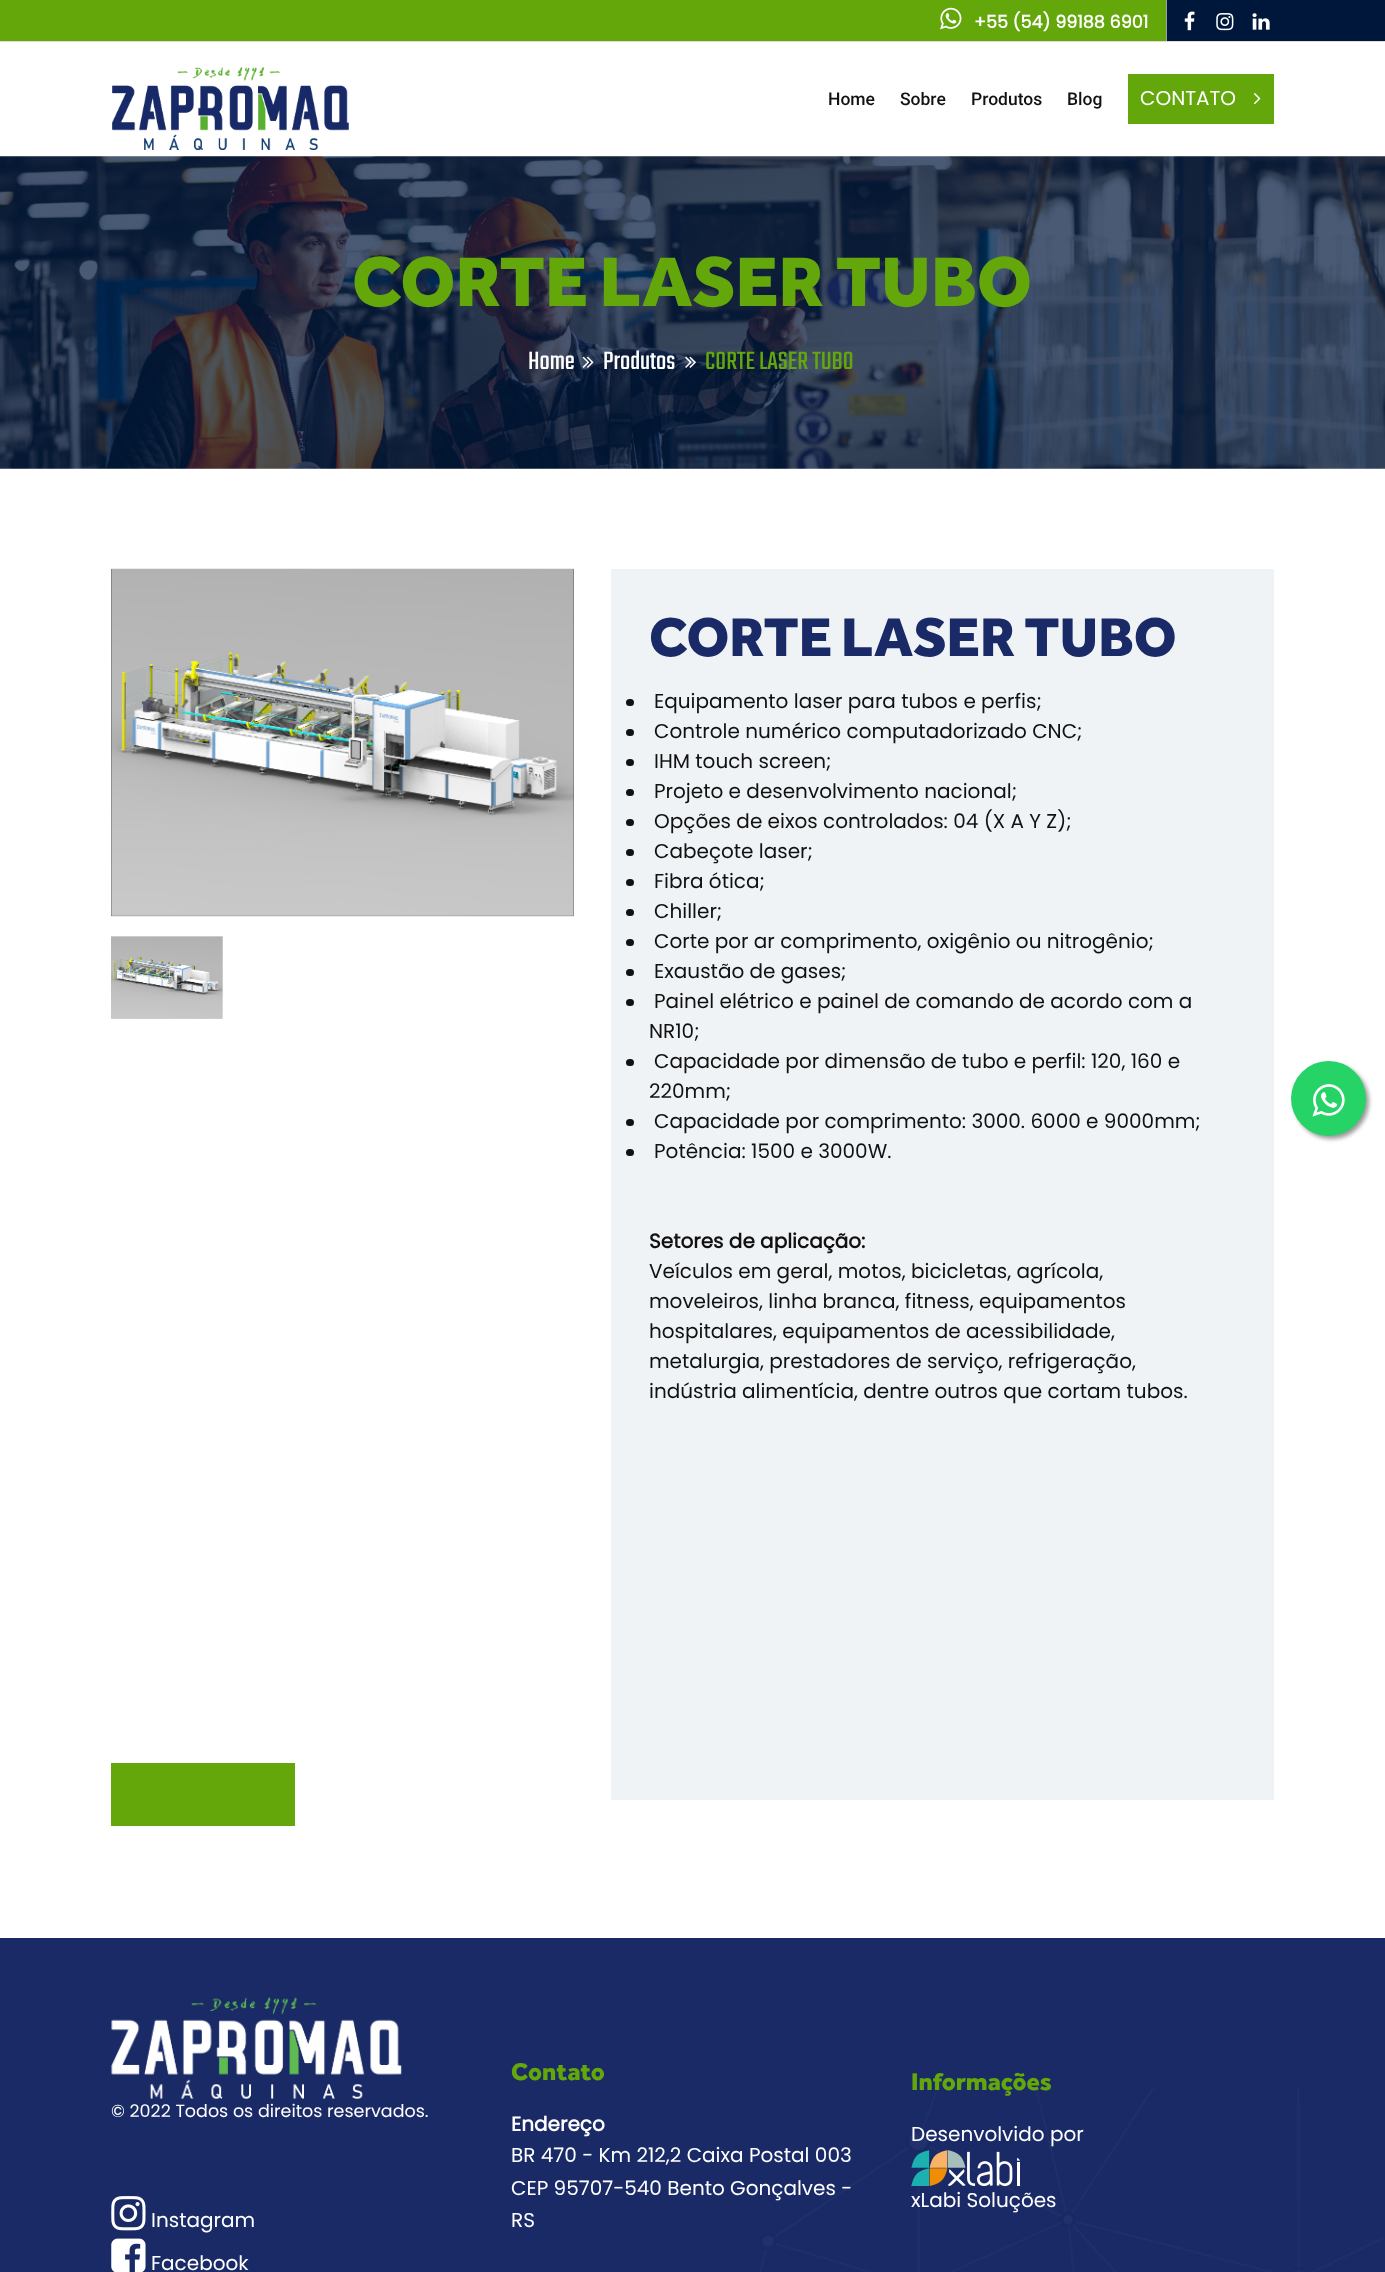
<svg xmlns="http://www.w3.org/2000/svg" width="1385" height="2272">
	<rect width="100%" height="100%" fill="#FFFFFF" />
	<rect x="1167" y="0" width="218" height="41" fill="#00173C" />
	<rect x="1166" y="0" width="1" height="41" fill="#99A2B1" />
	<rect x="0" y="0" width="1166" height="41" fill="#64A70B" />
	<image x="940" y="7" width="22" height="23" href="assets/img1.png" />
	<text x="974" y="28" font-family="Poppins" font-size="17.5" font-weight="700" fill="#FFFFFF">+55 (54) 99188 6901</text>
	<image x="1184" y="11" width="11" height="20" href="assets/img2.png" />
	<image x="1216" y="13" width="18" height="18" href="assets/img3.png" />
	<image x="1252" y="13" width="18" height="17" href="assets/img4.png" />
	<rect x="0" y="41" width="1385" height="1" fill="#DDDDDD" />
	<image x="112" y="67" width="237" height="83" href="assets/img5.png" />
	<g font-family="Roboto" font-size="17.5" font-weight="500" fill="#111111">
		<text x="828" y="105">Home</text>
		<text x="900" y="105">Sobre</text>
		<text x="971" y="105">Produtos</text>
		<text x="1067" y="105">Blog</text>
	</g>
	<rect x="1128" y="74" width="146" height="50" fill="#64A70B" />
	<text x="1140" y="105" font-family="Poppins" font-size="20" fill="#FFFFFF">CONTATO</text>
	<image x="1253" y="93" width="8" height="12" href="assets/img6.png" />
	<image x="0" y="156" width="1385" height="313" href="assets/img7.png" />
	<text x="352" y="306" font-family="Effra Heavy" font-size="72.5" font-weight="900" fill="#64A70B">CORTE LASER TUBO</text>
	<text x="528" y="369" font-family="Teko" font-size="27.5" fill="#FFFFFF">Home</text>
	<image x="582" y="356" width="12" height="12" href="assets/img8.png" />
	<text x="603" y="369" font-family="Teko" font-size="27.5" fill="#FFFFFF">Produtos</text>
	<image x="685" y="356" width="11" height="12" href="assets/img9.png" />
	<text x="705" y="369" font-family="Teko" font-size="27.5" fill="#64A70B">CORTE LASER TUBO</text>
	<rect x="111" y="569" width="463" height="347" fill="#000000" />
	<image x="111" y="568" width="463" height="349" href="assets/img10.png" />
	<image x="111" y="936" width="112" height="83" href="assets/img11.png" />
	<rect x="111" y="1763" width="184" height="63" fill="#64A70B" />
	<rect x="611" y="569" width="663" height="1231" fill="#EFF3F6" />
	<text x="649" y="656" font-family="Effra Heavy" font-size="56.25" font-weight="900" fill="#192A67">CORTE LASER TUBO</text>
	<rect x="626" y="699" width="8" height="7" rx="3.5" fill="#111111" />
	<text x="654" y="708" font-family="Poppins" font-size="20" fill="#111111">Equipamento laser para tubos e perfis;</text>
	<rect x="626" y="729" width="8" height="7" rx="3.5" fill="#111111" />
	<text x="654" y="738" font-family="Poppins" font-size="20" fill="#111111">Controle numérico computadorizado CNC;</text>
	<rect x="626" y="759" width="8" height="7" rx="3.5" fill="#111111" />
	<text x="654" y="768" font-family="Poppins" font-size="20" fill="#111111">IHM touch screen;</text>
	<rect x="626" y="789" width="8" height="7" rx="3.5" fill="#111111" />
	<text x="654" y="798" font-family="Poppins" font-size="20" fill="#111111">Projeto e desenvolvimento nacional;</text>
	<rect x="626" y="819" width="8" height="7" rx="3.5" fill="#111111" />
	<text x="654" y="828" font-family="Poppins" font-size="20" fill="#111111">Opções de eixos controlados: 04 (X A Y Z);</text>
	<rect x="626" y="849" width="8" height="7" rx="3.5" fill="#111111" />
	<text x="654" y="858" font-family="Poppins" font-size="20" fill="#111111">Cabeçote laser;</text>
	<rect x="626" y="879" width="8" height="7" rx="3.5" fill="#111111" />
	<text x="654" y="888" font-family="Poppins" font-size="20" fill="#111111">Fibra ótica;</text>
	<rect x="626" y="909" width="8" height="7" rx="3.5" fill="#111111" />
	<text x="654" y="918" font-family="Poppins" font-size="20" fill="#111111">Chiller;</text>
	<rect x="626" y="939" width="8" height="7" rx="3.5" fill="#111111" />
	<text x="654" y="948" font-family="Poppins" font-size="20" fill="#111111">Corte por ar comprimento, oxigênio ou nitrogênio;</text>
	<rect x="626" y="969" width="8" height="7" rx="3.5" fill="#111111" />
	<text x="654" y="978" font-family="Poppins" font-size="20" fill="#111111">Exaustão de gases;</text>
	<rect x="626" y="999" width="8" height="7" rx="3.5" fill="#111111" />
	<g font-family="Poppins" font-size="20" fill="#111111">
		<text x="654" y="1008">Painel elétrico e painel de comando de acordo com a</text>
		<text x="649" y="1038">NR10;</text>
	</g>
	<rect x="626" y="1059" width="8" height="7" rx="3.5" fill="#111111" />
	<g font-family="Poppins" font-size="20" fill="#111111">
		<text x="654" y="1068">Capacidade por dimensão de tubo e perfil: 120, 160 e</text>
		<text x="649" y="1098">220mm;</text>
	</g>
	<rect x="626" y="1119" width="8" height="7" rx="3.5" fill="#111111" />
	<text x="654" y="1128" font-family="Poppins" font-size="20" fill="#111111">Capacidade por comprimento: 3000. 6000 e 9000mm;</text>
	<rect x="626" y="1149" width="8" height="7" rx="3.5" fill="#111111" />
	<text x="654" y="1158" font-family="Poppins" font-size="20" fill="#111111">Potência: 1500 e 3000W.</text>
	<text x="649" y="1248" font-family="Poppins" font-size="20" font-weight="700" fill="#111111">Setores de aplicação:</text>
	<g font-family="Poppins" font-size="20" fill="#111111">
		<text x="649" y="1278">Veículos em geral, motos, bicicletas, agrícola,</text>
		<text x="649" y="1308">moveleiros, linha branca, fitness, equipamentos</text>
		<text x="649" y="1338">hospitalares, equipamentos de acessibilidade,</text>
		<text x="649" y="1368">metalurgia, prestadores de serviço, refrigeração,</text>
		<text x="649" y="1398">indústria alimentícia, dentre outros que cortam tubos.</text>
	</g>
	<rect x="1294" y="1064" width="75" height="75" rx="37.5" fill="#999999" filter="blur(2px)" />
	<circle cx="1328.5" cy="1098.5" r="37.5" fill="#25D366" />
	<image x="1312" y="1084" width="33" height="33" href="assets/img12.png" />
	<rect x="0" y="1938" width="1385" height="334" fill="#192A67" />
	<image x="760" y="2088" width="624" height="184" href="assets/img13.png" />
	<image x="111" y="1997" width="291" height="102" href="assets/img14.png" />
	<text x="111" y="2117" font-family="Poppins" font-size="17.5" fill="#FFFFFF">© 2022 Todos os direitos reservados.</text>
	<image x="111" y="2196" width="35" height="35" href="assets/img15.png" />
	<text x="151" y="2227" font-family="Poppins" font-size="20" fill="#FFFFFF">Instagram</text>
	<image x="111" y="2238" width="35" height="34" href="assets/img16.png" />
	<text x="151" y="2270" font-family="Poppins" font-size="20" fill="#FFFFFF">Facebook</text>
	<text x="511" y="2080" font-family="Effra Heavy" font-size="25" font-weight="900" fill="#64A70B">Contato</text>
	<text x="511" y="2131" font-family="Poppins" font-size="20" font-weight="700" fill="#FFFFFF">Endereço</text>
	<g font-family="Poppins" font-size="20" fill="#FFFFFF">
		<text x="511" y="2162">BR 470 - Km 212,2 Caixa Postal 003</text>
		<text x="511" y="2195">CEP 95707-540 Bento Gonçalves -</text>
		<text x="511" y="2227">RS</text>
	</g>
	<text x="911" y="2090" font-family="Effra Heavy" font-size="25" font-weight="900" fill="#64A70B">Informações</text>
	<text x="911" y="2141" font-family="Poppins" font-size="20" fill="#FFFFFF">Desenvolvido por</text>
	<image x="911" y="2150" width="109" height="36" href="assets/img17.png" />
	<text x="911" y="2207" font-family="Poppins" font-size="20" fill="#FFFFFF">xLabi Soluções</text>
</svg>
